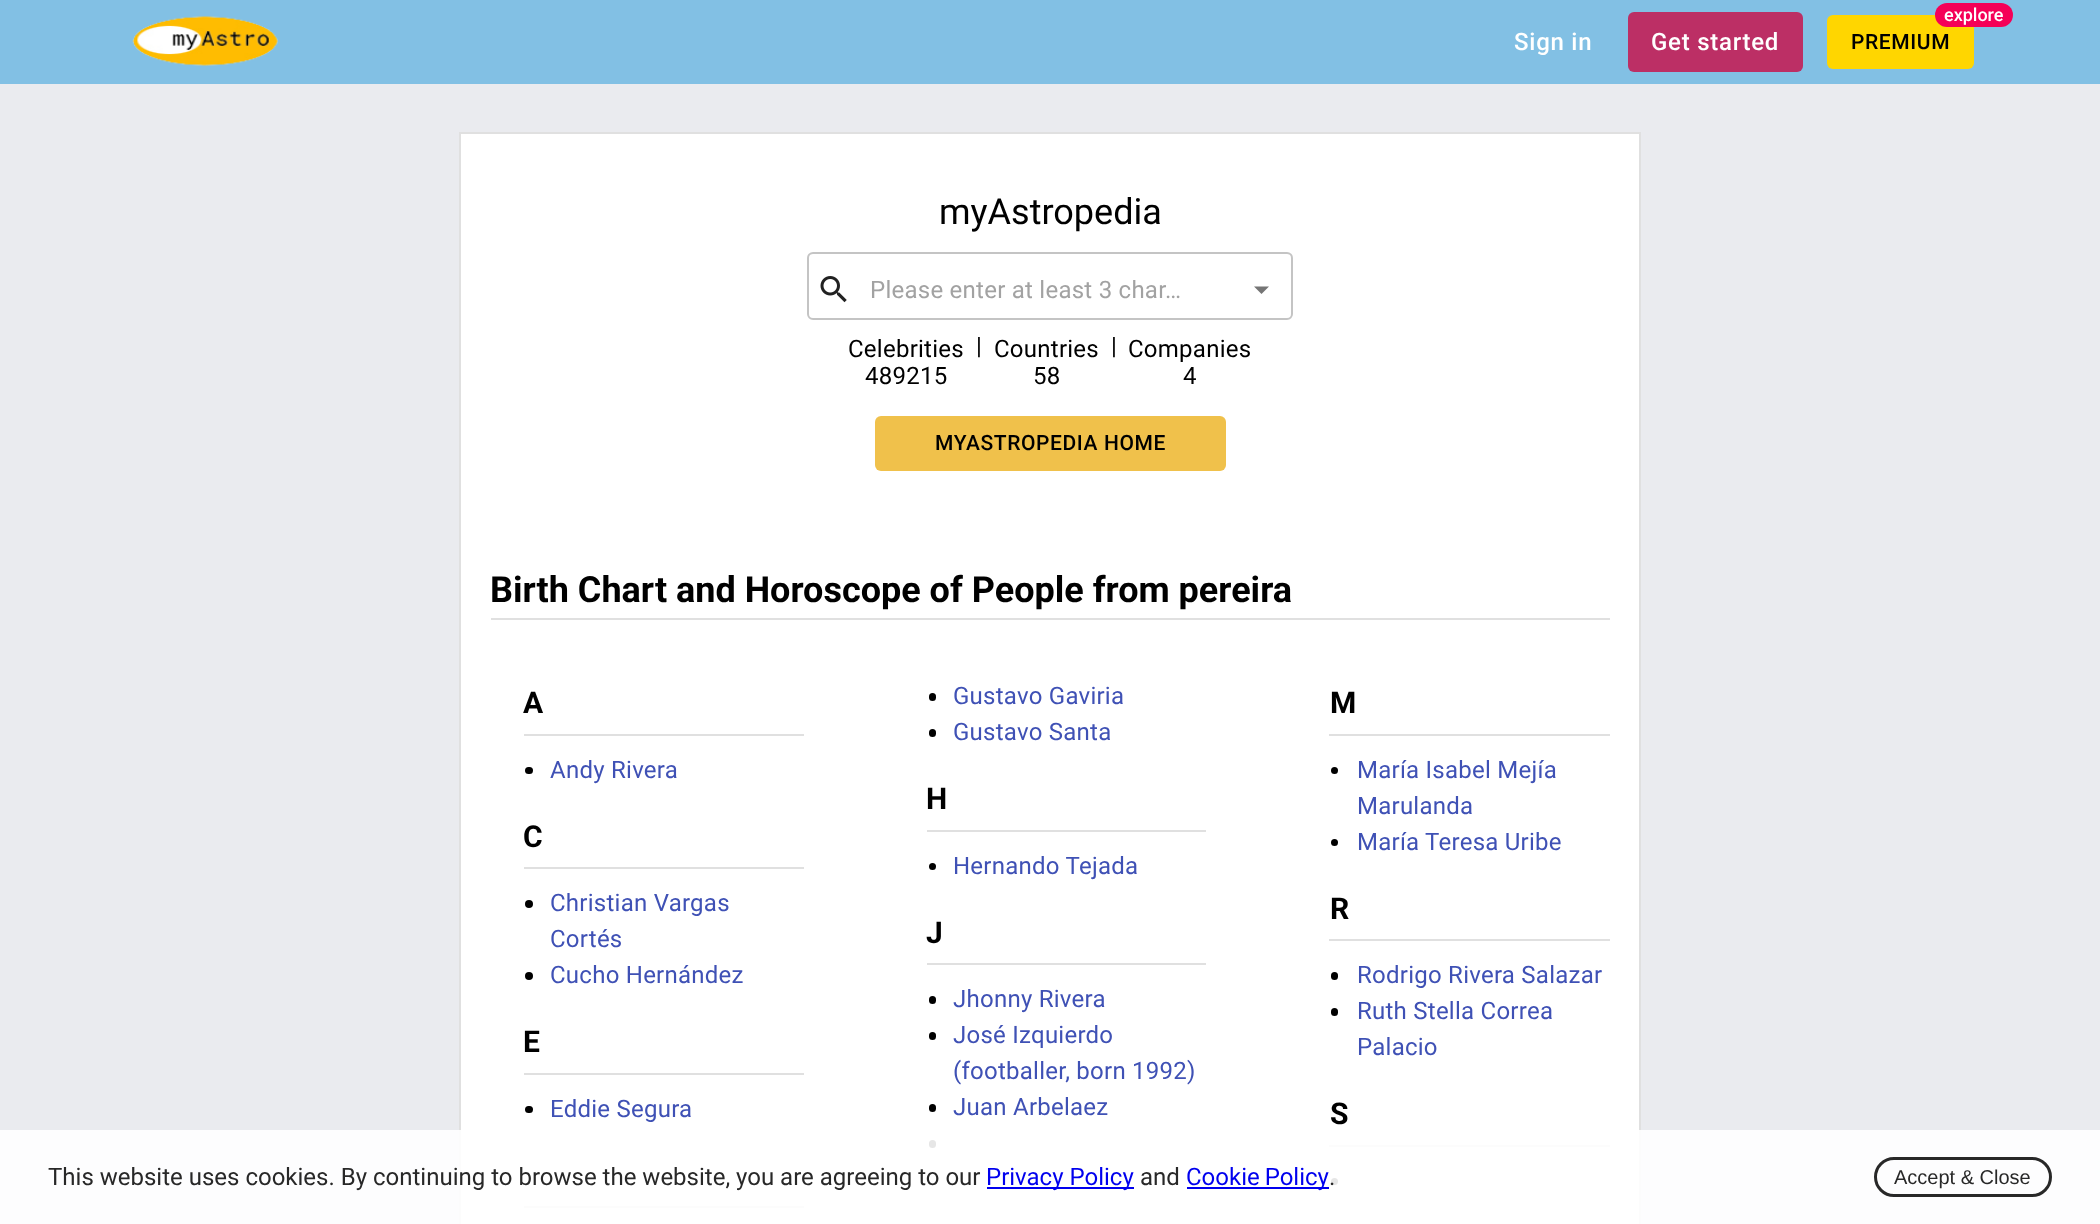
<svg xmlns="http://www.w3.org/2000/svg" width="2100" height="1224">
	<rect width="100%" height="100%" fill="#EAEBEF" />
	<rect x="0" y="0" width="2100" height="84" fill="#82C0E4" />
	<image x="132" y="16" width="146" height="50" href="assets/img1.png" />
	<text x="1514" y="50" font-family="Roboto" font-size="24" font-weight="500" letter-spacing="0.75" fill="#FFFFFF">Sign in</text>
	<rect x="1628" y="12" width="175" height="60" rx="6" fill="#BC2F65" />
	<text x="1651" y="50" font-family="Roboto" font-size="24" font-weight="500" letter-spacing="0.75" fill="#FFFFFF">Get started</text>
	<rect x="1827" y="15" width="147" height="54" rx="6" fill="#FFD600" />
	<rect x="1935" y="3" width="78" height="24" rx="12" fill="#F50057" />
	<text x="1944" y="21" font-family="Roboto" font-size="18" font-weight="500" fill="#FFFFFF">explore</text>
	<text x="1851" y="49" font-family="Roboto" font-size="21" font-weight="500" letter-spacing="0.6" fill="#000000">PREMIUM</text>
	<rect x="460" y="133" width="1180" height="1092" fill="#FFFFFF" stroke="#E0E0E0" stroke-width="2" />
	<text x="939" y="224" font-family="Roboto" font-size="36" fill="#000000">myAstropedia</text>
	<image x="820" y="276" width="27" height="27" href="assets/img2.png" />
	<path d="M1254 286.5L1261.5 294L1269 286.5Z" fill="#757575" />
	<rect x="808" y="253" width="484" height="66" rx="5" fill="none" stroke="#C4C4C4" stroke-width="2" />
	<text x="870" y="298" font-family="Roboto" font-size="24" letter-spacing="0.25" fill="#A2A2A2">Please enter at least 3 char…</text>
	<g font-family="Roboto" font-size="24" letter-spacing="0.25" fill="#000000">
		<text x="848" y="357">Celebrities</text>
		<text x="865" y="384">489215</text>
	</g>
	<text x="976" y="354" font-family="Roboto" font-size="24" fill="#000000">|</text>
	<g font-family="Roboto" font-size="24" letter-spacing="0.25" fill="#000000">
		<text x="994" y="357">Countries</text>
		<text x="1033" y="384">58</text>
	</g>
	<text x="1111" y="354" font-family="Roboto" font-size="24" fill="#000000">|</text>
	<g font-family="Roboto" font-size="24" letter-spacing="0.25" fill="#000000">
		<text x="1128" y="357">Companies</text>
		<text x="1183" y="384">4</text>
	</g>
	<rect x="875" y="416" width="351" height="55" rx="6" fill="#F0C14B" />
	<text x="935" y="450" font-family="Roboto" font-size="21" font-weight="500" letter-spacing="0.6" fill="#000000">MYASTROPEDIA HOME</text>
	<text x="490" y="602" font-family="Roboto" font-size="36" font-weight="700" fill="#000000">Birth Chart and Horoscope of People from pereira</text>
	<rect x="491" y="618" width="1119" height="2" fill="#E0E0E0" />
	<text x="523" y="713" font-family="Roboto" font-size="30" font-weight="700" fill="#000000">A</text>
	<rect x="929" y="693" width="7" height="8" rx="3.5" fill="#000000" />
	<text x="953" y="704" font-family="Roboto" font-size="24" letter-spacing="0.25" fill="#3F51B5">Gustavo Gaviria</text>
	<text x="1330" y="713" font-family="Roboto" font-size="30" font-weight="700" fill="#000000">M</text>
	<rect x="524" y="734" width="280" height="2" fill="#E0E0E0" />
	<rect x="929" y="729" width="7" height="8" rx="3.5" fill="#000000" />
	<text x="953" y="740" font-family="Roboto" font-size="24" letter-spacing="0.25" fill="#3F51B5">Gustavo Santa</text>
	<rect x="1329" y="734" width="281" height="2" fill="#E0E0E0" />
	<rect x="525" y="767" width="8" height="7" rx="3.5" fill="#000000" />
	<text x="550" y="778" font-family="Roboto" font-size="24" letter-spacing="0.25" fill="#3F51B5">Andy Rivera</text>
	<text x="926" y="809" font-family="Roboto" font-size="30" font-weight="700" fill="#000000">H</text>
	<circle cx="1334.5" cy="770.5" r="3.5" fill="#000000" />
	<g font-family="Roboto" font-size="24" letter-spacing="0.25" fill="#3F51B5">
		<text x="1357" y="778">María Isabel Mejía</text>
		<text x="1357" y="814">Marulanda</text>
	</g>
	<text x="523" y="847" font-family="Roboto" font-size="30" font-weight="700" fill="#000000">C</text>
	<rect x="927" y="830" width="279" height="2" fill="#E0E0E0" />
	<circle cx="1334.5" cy="842.5" r="3.5" fill="#000000" />
	<text x="1357" y="850" font-family="Roboto" font-size="24" letter-spacing="0.25" fill="#3F51B5">María Teresa Uribe</text>
	<rect x="524" y="867" width="280" height="2" fill="#E0E0E0" />
	<circle cx="932.5" cy="866.5" r="3.5" fill="#000000" />
	<text x="953" y="874" font-family="Roboto" font-size="24" letter-spacing="0.25" fill="#3F51B5">Hernando Tejada</text>
	<circle cx="529" cy="904" r="4" fill="#000000" />
	<g font-family="Roboto" font-size="24" letter-spacing="0.25" fill="#3F51B5">
		<text x="550" y="911">Christian Vargas</text>
		<text x="550" y="947">Cortés</text>
	</g>
	<g font-family="Roboto" font-size="30" font-weight="700" fill="#000000">
		<text x="1330" y="919">R</text>
		<text x="926" y="943">J</text>
	</g>
	<rect x="1329" y="939" width="281" height="2" fill="#E0E0E0" />
	<rect x="927" y="963" width="279" height="2" fill="#E0E0E0" />
	<circle cx="529" cy="976" r="4" fill="#000000" />
	<text x="550" y="983" font-family="Roboto" font-size="24" letter-spacing="0.25" fill="#3F51B5">Cucho Hernández</text>
	<rect x="1331" y="972" width="7" height="8" rx="3.5" fill="#000000" />
	<text x="1357" y="983" font-family="Roboto" font-size="24" letter-spacing="0.25" fill="#3F51B5">Rodrigo Rivera Salazar</text>
	<rect x="929" y="996" width="7" height="8" rx="3.5" fill="#000000" />
	<text x="953" y="1007" font-family="Roboto" font-size="24" letter-spacing="0.25" fill="#3F51B5">Jhonny Rivera</text>
	<rect x="1331" y="1008" width="7" height="8" rx="3.5" fill="#000000" />
	<g font-family="Roboto" font-size="24" letter-spacing="0.25" fill="#3F51B5">
		<text x="1357" y="1019">Ruth Stella Correa</text>
		<text x="1357" y="1055">Palacio</text>
	</g>
	<text x="523" y="1052" font-family="Roboto" font-size="30" font-weight="700" fill="#000000">E</text>
	<rect x="929" y="1032" width="7" height="8" rx="3.5" fill="#000000" />
	<g font-family="Roboto" font-size="24" letter-spacing="0.25" fill="#3F51B5">
		<text x="953" y="1043">José Izquierdo</text>
		<text x="953" y="1079">(footballer, born 1992)</text>
	</g>
	<rect x="524" y="1073" width="280" height="2" fill="#E0E0E0" />
	<rect x="525" y="1106" width="8" height="7" rx="3.5" fill="#000000" />
	<text x="550" y="1117" font-family="Roboto" font-size="24" letter-spacing="0.25" fill="#3F51B5">Eddie Segura</text>
	<rect x="929" y="1104" width="7" height="8" rx="3.5" fill="#000000" />
	<text x="953" y="1115" font-family="Roboto" font-size="24" letter-spacing="0.25" fill="#3F51B5">Juan Arbelaez</text>
	<text x="1330" y="1124" font-family="Roboto" font-size="30" font-weight="700" fill="#000000">S</text>
	<rect x="929" y="1140" width="7" height="8" rx="3.5" fill="#000000" />
	<rect x="1329" y="1145" width="281" height="2" fill="#E0E0E0" />
	<circle cx="1334.5" cy="1181.5" r="3.5" fill="#000000" />
	<rect x="524" y="1206" width="280" height="2" fill="#E0E0E0" />
	<rect x="0" y="1130" width="2100" height="94" fill="#FFFFFF" fill-opacity="0.9" />
	<text x="48" y="1185" font-family="Roboto" font-size="24" fill="#282828">This website uses cookies. By continuing to browse the website, you are agreeing to our</text>
	<rect x="987" y="1187" width="147" height="2" fill="#0000EE" />
	<text x="986" y="1185" font-family="Roboto" font-size="24" fill="#0000EE">Privacy Policy</text>
	<text x="1140" y="1185" font-family="Roboto" font-size="24" fill="#282828">and</text>
	<rect x="1187" y="1187" width="142" height="2" fill="#0000EE" />
	<text x="1186" y="1185" word-spacing="-1" font-family="Roboto" font-size="24" fill="#0000EE">Cookie Policy</text>
	<text x="1329" y="1185" font-family="Roboto" font-size="24" fill="#282828">.</text>
	<rect x="1875.5" y="1158.5" width="175" height="37" rx="18.5" fill="none" stroke="#282828" stroke-width="3" />
	<text x="1894" y="1184" font-family="Liberation Sans" font-size="20" fill="#282828">Accept &amp; Close</text>
</svg>
